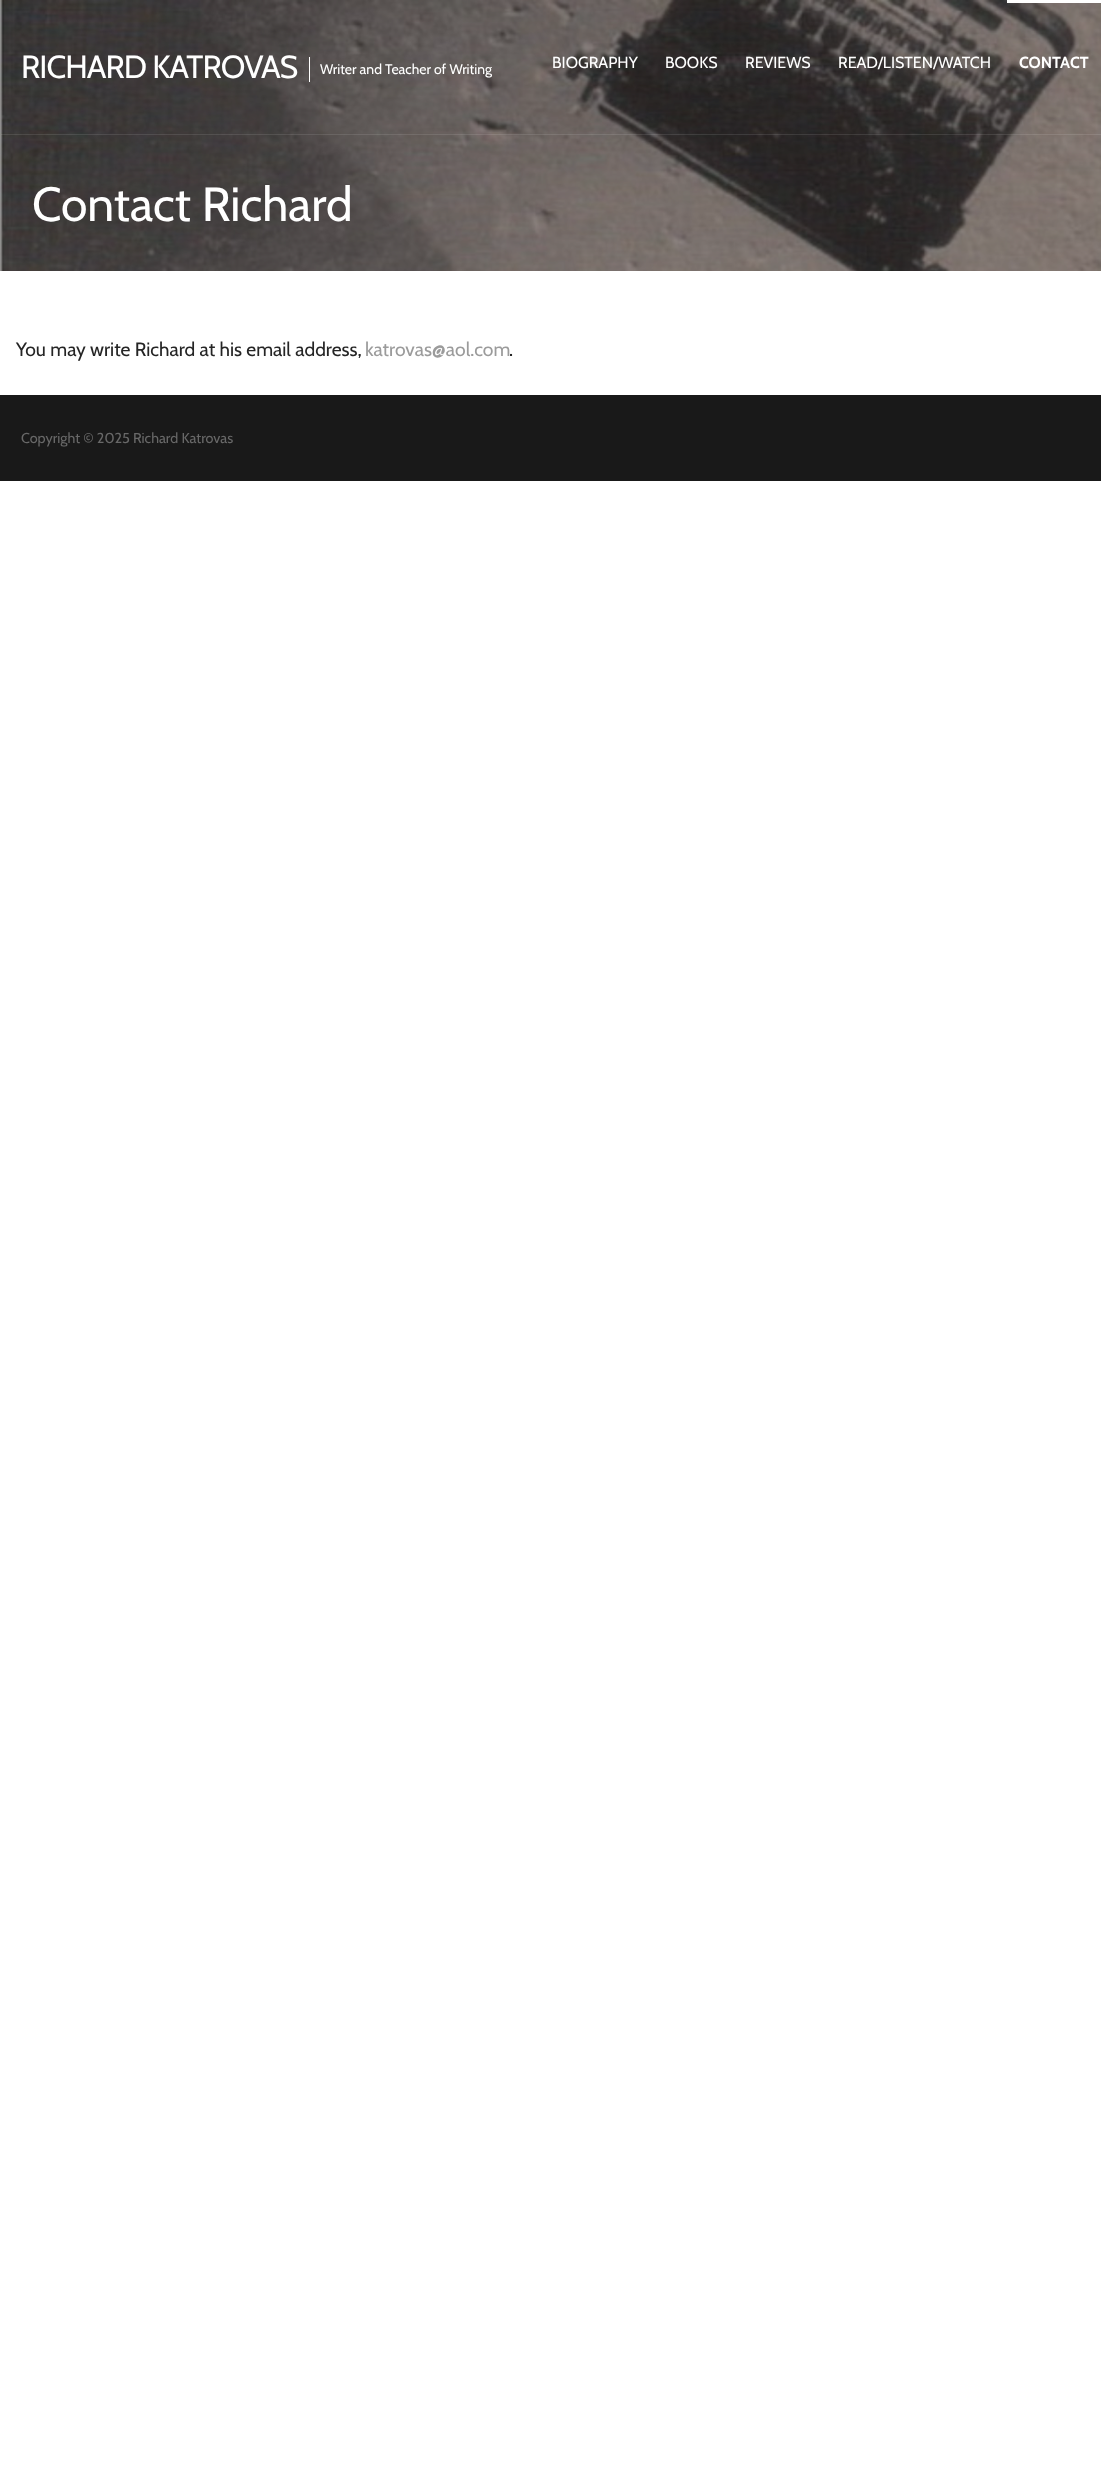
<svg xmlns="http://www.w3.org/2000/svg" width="1101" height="2465">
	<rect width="100%" height="100%" fill="#FFFFFF" />
	<image x="0" y="0" width="1101" height="271" href="assets/img1.png" />
	<rect x="1" y="134" width="1100" height="1" fill="#FFFFFF" fill-opacity="0.1" />
	<text x="21" y="78" font-family="Cabin" font-size="32" letter-spacing="-1" fill="#FFFFFF">RICHARD KATROVAS</text>
	<rect x="309" y="57" width="1" height="25" fill="#FFFFFF" />
	<text x="320" y="74" font-family="Cabin" font-size="14" fill="#FFFFFF">Writer and Teacher of Writing</text>
	<g font-family="Cabin" font-size="16" fill="#FFFFFF">
		<text x="552" y="68">BIOGRAPHY</text>
		<text x="665" y="68">BOOKS</text>
		<text x="745" y="68">REVIEWS</text>
		<text x="838" y="68">READ/LISTEN/WATCH</text>
	</g>
	<rect x="1007" y="0" width="94" height="3" fill="#FFFFFF" />
	<text x="1019" y="68" font-family="Cabin" font-size="16" font-weight="700" fill="#FFFFFF">CONTACT</text>
	<text x="32" y="221" font-family="Cabin" font-size="48" fill="#FFFFFF">Contact Richard</text>
	<text x="16" y="356" font-family="Cabin" font-size="19.25" fill="#252525">You may write Richard at his email address,</text>
	<text x="365" y="356" font-family="Cabin" font-size="19.25" fill="#9B9B9B">katrovas@aol.com</text>
	<text x="509" y="356" font-family="Cabin" font-size="19.25" fill="#252525">.</text>
	<rect x="0" y="395" width="1101" height="86" fill="#191919" />
	<text x="21" y="443" font-family="Cabin" font-size="14.4" fill="#686868">Copyright © 2025 Richard Katrovas</text>
</svg>
